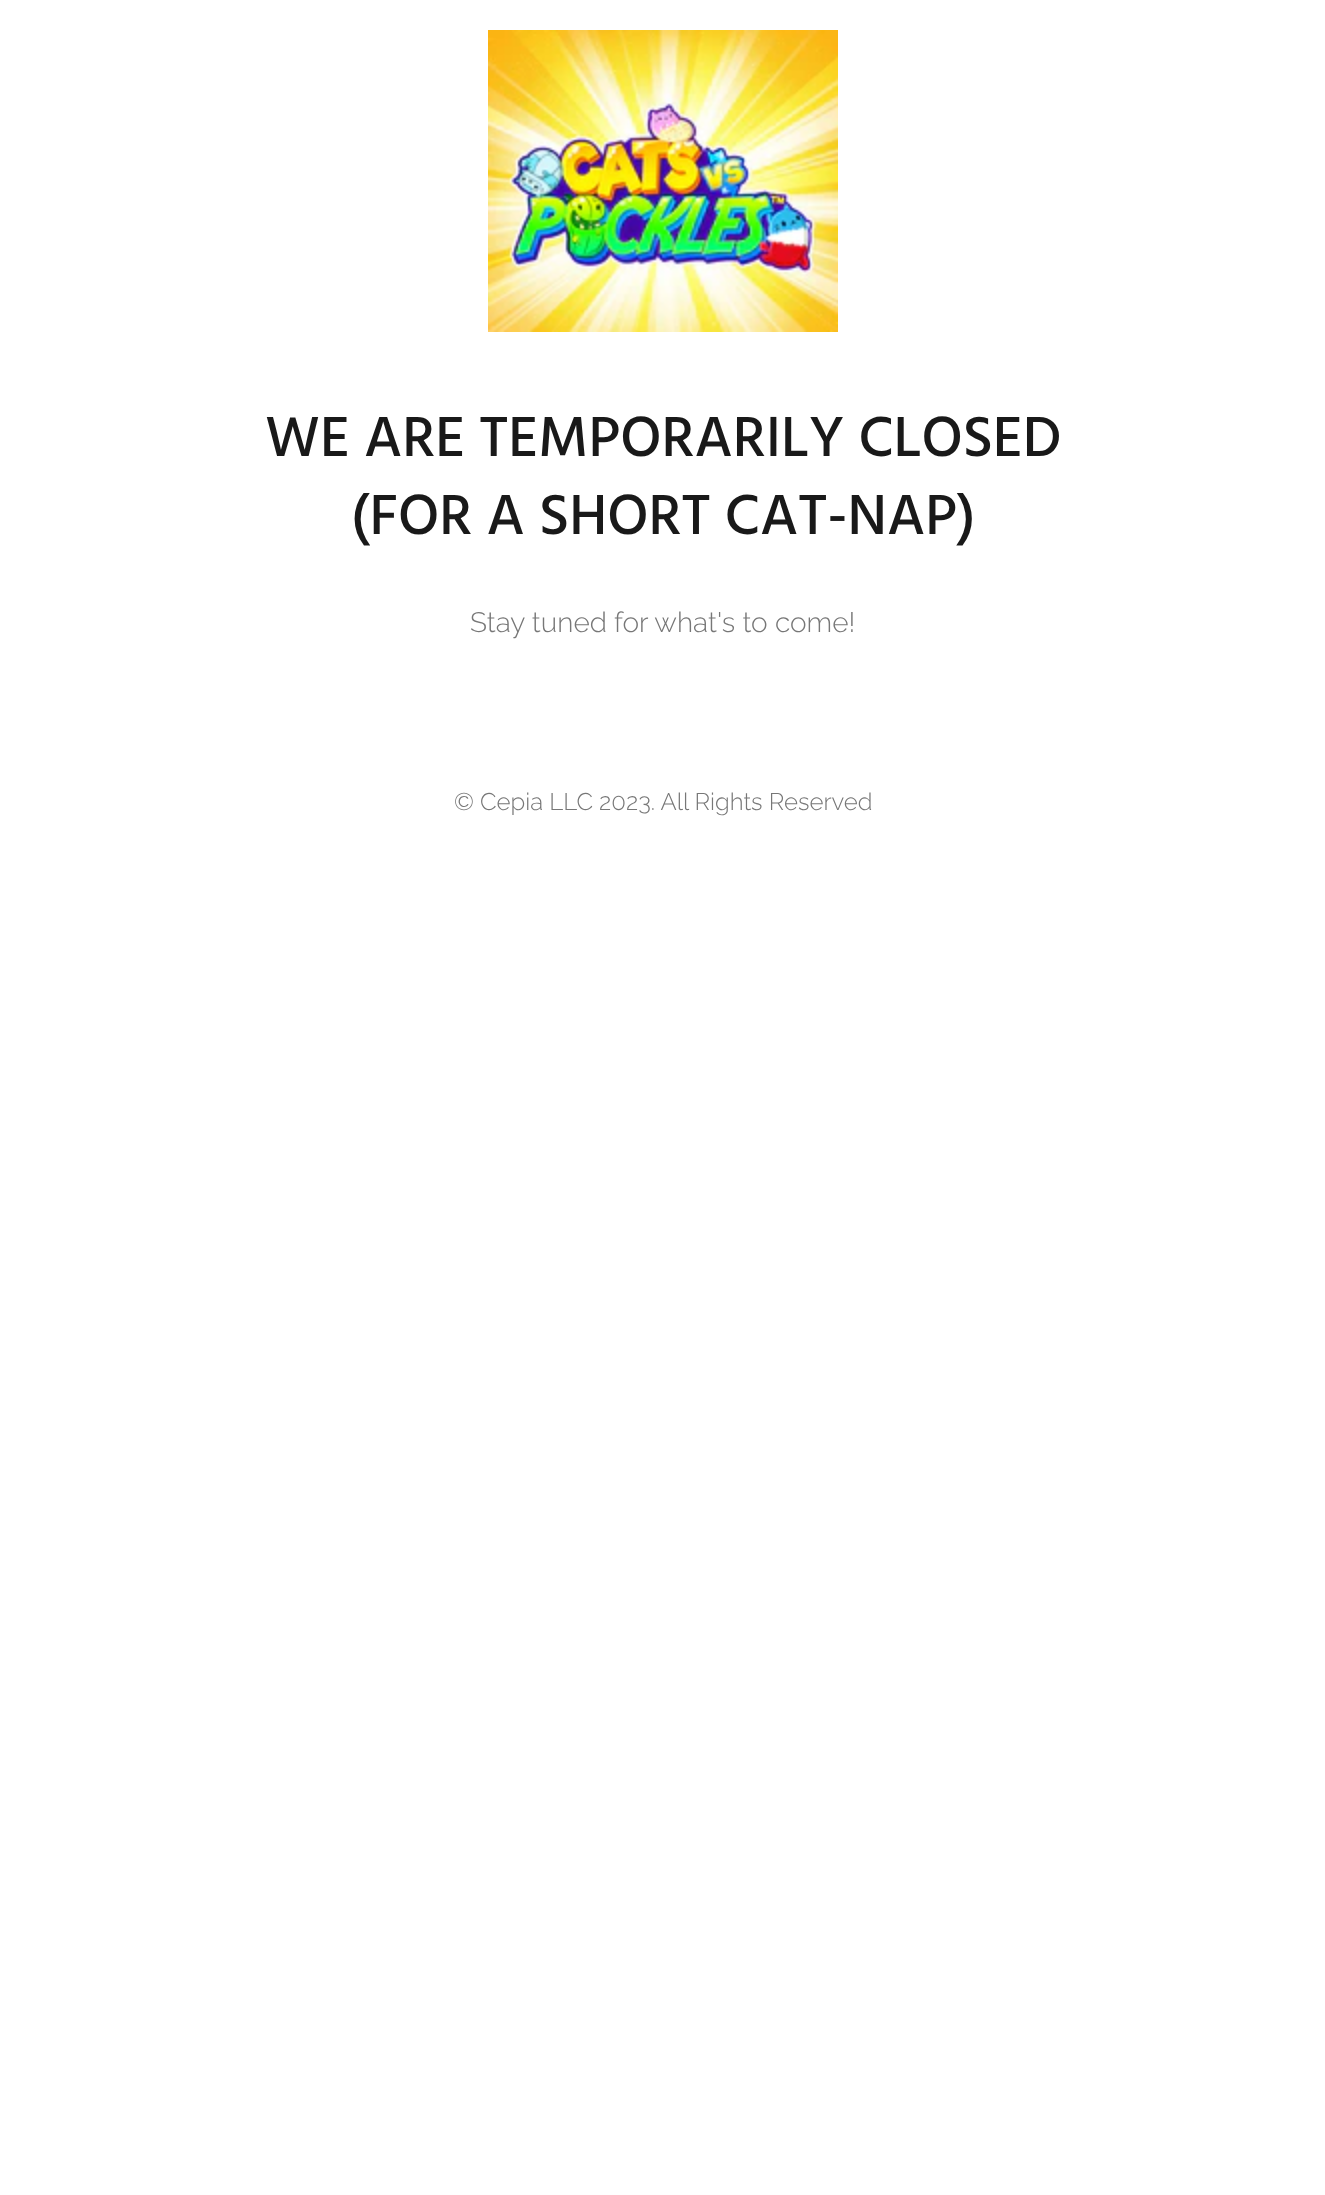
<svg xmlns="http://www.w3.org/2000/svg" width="1325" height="2195">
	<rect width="100%" height="100%" fill="#FFFFFF" />
	<image x="488" y="30" width="350" height="302" href="assets/img1.png" />
	<g font-family="Hind" font-size="58" font-weight="500" fill="#191919">
		<text x="265" y="456">WE ARE TEMPORARILY CLOSED</text>
		<text x="351" y="534">(FOR A SHORT CAT-NAP)</text>
	</g>
	<text x="470" y="632" font-family="Raleway" font-size="28" font-weight="300" fill="#777777">Stay tuned for what's to come!</text>
	<text x="454" y="810" font-family="Raleway" font-size="24" font-weight="300" fill="#777777">© Cepia LLC 2023. All Rights Reserved</text>
</svg>
